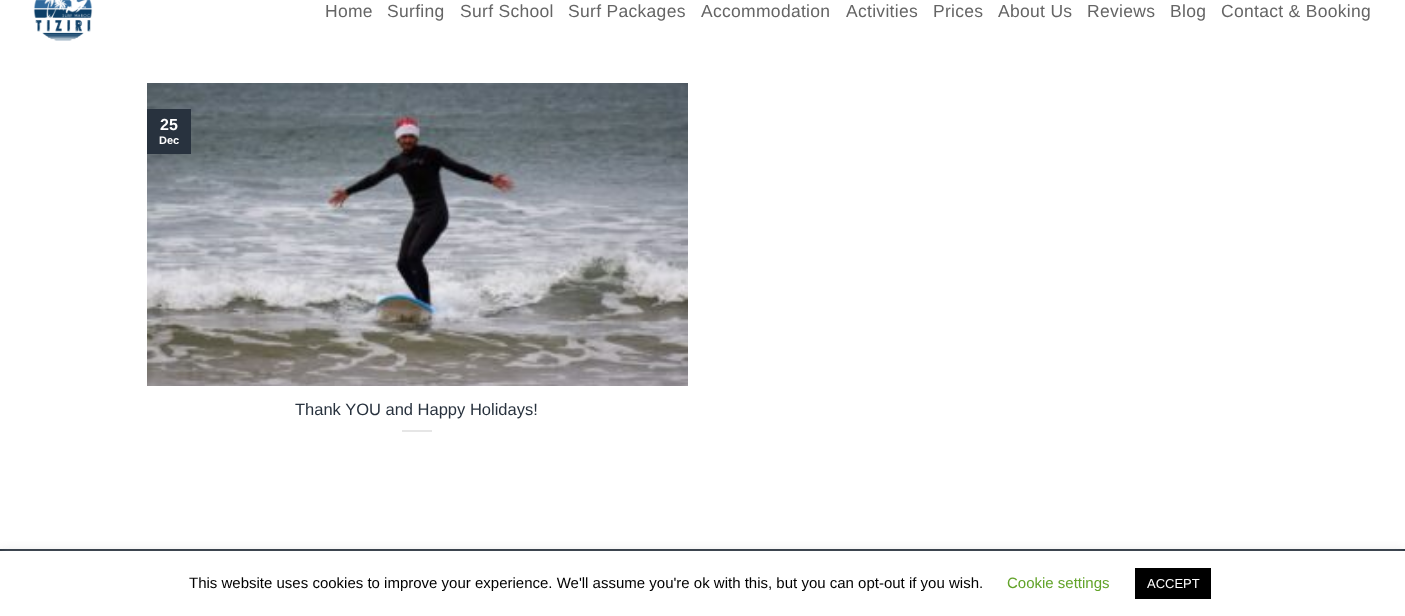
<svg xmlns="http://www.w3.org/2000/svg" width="1405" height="616">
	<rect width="100%" height="100%" fill="#FFFFFF" />
	<image x="33" y="0" width="60" height="41" href="assets/img1.png" />
	<g font-family="Liberation Sans" font-size="17.5" letter-spacing="0.3" fill="#656565">
		<text x="325" y="17">Home</text>
		<text x="387" y="17">Surfing</text>
		<text x="460" y="17">Surf School</text>
		<text x="568" y="17">Surf Packages</text>
		<text x="701" y="17">Accommodation</text>
		<text x="846" y="17">Activities</text>
		<text x="933" y="17">Prices</text>
		<text x="998" y="17">About Us</text>
		<text x="1087" y="17">Reviews</text>
		<text x="1170" y="17">Blog</text>
		<text x="1221" y="17">Contact &amp; Booking</text>
	</g>
	<image x="147" y="83" width="541" height="303" href="assets/img2.png" />
	<rect x="147" y="109" width="44" height="45" fill="#28323E" />
	<text x="160" y="130" font-family="Liberation Sans" font-size="16" font-weight="700" fill="#FFFFFF">25</text>
	<text x="159" y="144" font-family="Liberation Sans" font-size="11" font-weight="700" fill="#FFFFFF">Dec</text>
	<text x="295" y="415" font-family="Liberation Sans" font-size="16.5" fill="#28323E">Thank YOU and Happy Holidays!</text>
	<rect x="402" y="430" width="30" height="2" fill="#E6E6E6" />
	<rect x="0" y="549" width="1405" height="2" fill="#28323E" />
	<rect x="0" y="550" width="1405" height="65" fill="#ACABAB" fill-opacity="0.3" filter="blur(5px)" />
	<rect x="0" y="551" width="1405" height="65" fill="#FFFFFF" />
	<text x="189" y="588" font-family="Liberation Sans" font-size="15" fill="#000000">This website uses cookies to improve your experience. We'll assume you're ok with this, but you can opt-out if you wish.</text>
	<text x="1007" y="588" font-family="Liberation Sans" font-size="15" fill="#62A329">Cookie settings</text>
	<rect x="1135" y="568" width="76" height="31" fill="#000000" />
	<text x="1147" y="588" font-family="Liberation Sans" font-size="13" fill="#FFFFFF">ACCEPT</text>
</svg>
